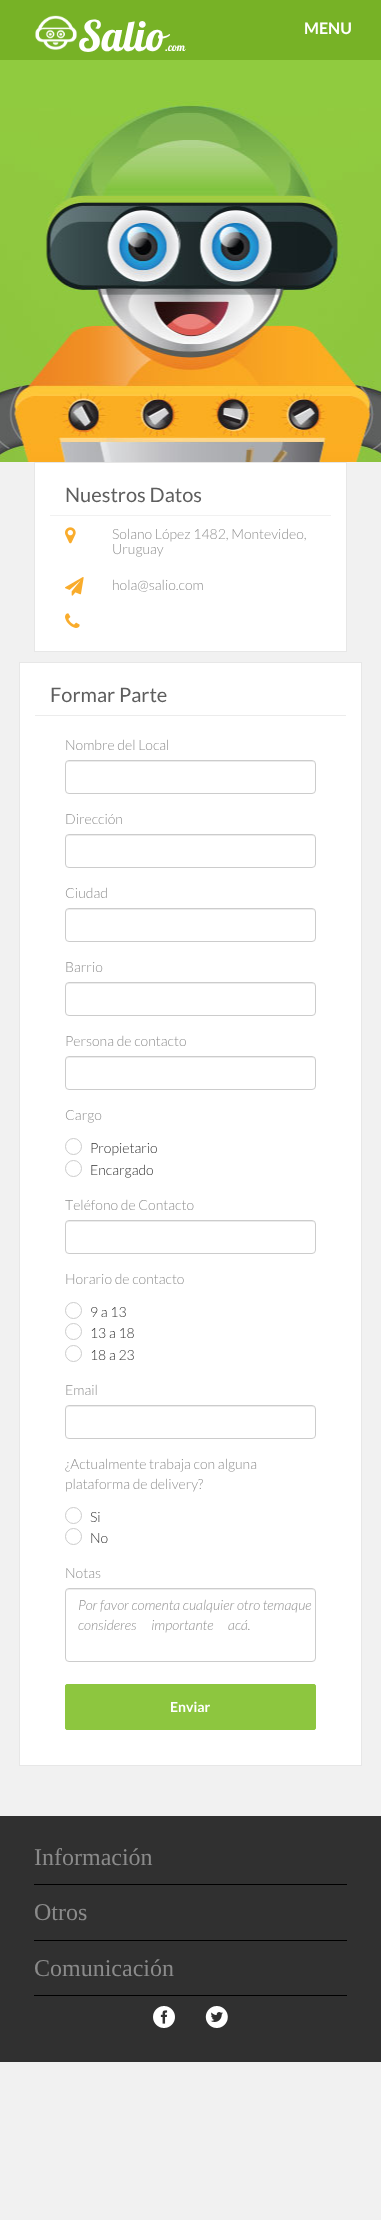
<svg xmlns="http://www.w3.org/2000/svg" width="381" height="2220">
	<style>*{font-kerning:none!important;font-variant-ligatures:none!important}</style>
	<rect width="100%" height="100%" fill="#F1F1F1" />
	<rect x="0" y="0" width="381" height="60" fill="#77B226" />
	<image x="35" y="15" width="42" height="35" href="assets/img1.png" />
	<text x="78" y="51" font-family="'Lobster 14'" font-size="42" fill="#FFFFFF">Salio</text>
	<text x="165" y="51" font-family="'Lobster 14'" font-size="11" fill="#FFFFFF">.com</text>
	<text x="304" y="34" font-family="Lato" font-size="16" font-weight="700" fill="#FFFFFF">MENU</text>
	<image x="0" y="60" width="381" height="402" href="assets/img2.png" />
	<rect x="34.5" y="462.5" width="312" height="189" fill="#FFFFFF" stroke="#E7E7E7" />
	<rect x="50" y="515" width="281" height="1" fill="#F1F1F1" />
	<text x="65" y="502" font-family="Lato" font-size="20" fill="#5E5E5E">Nuestros Datos</text>
	<image x="65" y="527" width="11" height="17" href="assets/img3.png" />
	<g font-family="Lato" font-size="14" font-weight="300" fill="#919191">
		<text x="112" y="539">Solano López 1482, Montevideo,</text>
		<text x="112" y="554">Uruguay</text>
	</g>
	<image x="65" y="577" width="19" height="19" href="assets/img4.png" />
	<text x="112" y="590" font-family="Lato" font-size="14" font-weight="300" fill="#919191">hola@salio.com</text>
	<image x="65" y="613" width="15" height="15" href="assets/img5.png" />
	<rect x="19.5" y="662.5" width="342" height="1103" fill="#FFFFFF" stroke="#E7E7E7" />
	<text x="50" y="702" font-family="Lato" font-size="20" fill="#5E5E5E">Formar Parte</text>
	<rect x="35" y="715" width="311" height="1" fill="#ECECEC" />
	<text x="65" y="750" font-family="Lato" font-size="14" font-weight="300" fill="#919191">Nombre del Local</text>
	<path d="M69 762H313L315 763V765C315 763 314 761 312 761H69C67 761 66 763 66 765C66 763 67 762 69 762Z" fill="#ECECEC" />
	<rect x="65.5" y="760.5" width="250" height="33" rx="3.5" fill="none" stroke="#CCCCCC" />
	<text x="65" y="824" font-family="Lato" font-size="14" font-weight="300" fill="#919191">Dirección</text>
	<path d="M69 836H313L315 837V839C315 837 314 835 312 835H69C67 835 66 837 66 839C66 837 67 836 69 836Z" fill="#ECECEC" />
	<rect x="65.5" y="834.5" width="250" height="33" rx="3.5" fill="none" stroke="#CCCCCC" />
	<text x="65" y="898" font-family="Lato" font-size="14" font-weight="300" fill="#919191">Ciudad</text>
	<path d="M69 910H313L315 911V913C315 911 314 909 312 909H69C67 909 66 911 66 913C66 911 67 910 69 910Z" fill="#ECECEC" />
	<rect x="65.5" y="908.5" width="250" height="33" rx="3.5" fill="none" stroke="#CCCCCC" />
	<text x="65" y="972" font-family="Lato" font-size="14" font-weight="300" fill="#919191">Barrio</text>
	<path d="M69 984H313L315 985V987C315 985 314 983 312 983H69C67 983 66 985 66 987C66 985 67 984 69 984Z" fill="#ECECEC" />
	<rect x="65.5" y="982.5" width="250" height="33" rx="3.5" fill="none" stroke="#CCCCCC" />
	<text x="65" y="1046" font-family="Lato" font-size="14" font-weight="300" fill="#919191">Persona de contacto</text>
	<path d="M69 1058H313L315 1059V1061C315 1059 314 1057 312 1057H69C67 1057 66 1059 66 1061C66 1059 67 1058 69 1058Z" fill="#ECECEC" />
	<rect x="65.5" y="1056.5" width="250" height="33" rx="3.5" fill="none" stroke="#CCCCCC" />
	<text x="65" y="1120" font-family="Lato" font-size="14" font-weight="300" fill="#919191">Cargo</text>
	<circle cx="73.5" cy="1146.5" r="8" fill="none" stroke="#CCCCCC" />
	<text x="90" y="1153" font-family="Lato" font-size="14" font-weight="300" fill="#333333">Propietario</text>
	<circle cx="73.5" cy="1168.5" r="8" fill="none" stroke="#CCCCCC" />
	<text x="90" y="1175" font-family="Lato" font-size="14" font-weight="300" fill="#333333">Encargado</text>
	<text x="65" y="1210" font-family="Lato" font-size="14" font-weight="300" fill="#919191">Teléfono de Contacto</text>
	<path d="M69 1222H313L315 1223V1225C315 1223 314 1221 312 1221H69C67 1221 66 1223 66 1225C66 1223 67 1222 69 1222Z" fill="#ECECEC" />
	<rect x="65.5" y="1220.5" width="250" height="33" rx="3.5" fill="none" stroke="#CCCCCC" />
	<text x="65" y="1284" font-family="Lato" font-size="14" font-weight="300" fill="#919191">Horario de contacto</text>
	<circle cx="73.5" cy="1310.5" r="8" fill="none" stroke="#CCCCCC" />
	<text x="90" y="1317" font-family="Lato" font-size="14" font-weight="300" fill="#333333">9 a 13</text>
	<circle cx="73.5" cy="1331.5" r="8" fill="none" stroke="#CCCCCC" />
	<text x="90" y="1338" font-family="Lato" font-size="14" font-weight="300" fill="#333333">13 a 18</text>
	<circle cx="73.5" cy="1353.5" r="8" fill="none" stroke="#CCCCCC" />
	<text x="90" y="1360" font-family="Lato" font-size="14" font-weight="300" fill="#333333">18 a 23</text>
	<text x="65" y="1395" font-family="Lato" font-size="14" font-weight="300" fill="#919191">Email</text>
	<path d="M69 1407H313L315 1408V1410C315 1408 314 1406 312 1406H69C67 1406 66 1408 66 1410C66 1408 67 1407 69 1407Z" fill="#ECECEC" />
	<rect x="65.5" y="1405.5" width="250" height="33" rx="3.5" fill="none" stroke="#CCCCCC" />
	<g font-family="Lato" font-size="14" font-weight="300" fill="#919191">
		<text x="65" y="1469">¿Actualmente trabaja con alguna</text>
		<text x="65" y="1489">plataforma de delivery?</text>
	</g>
	<circle cx="73.5" cy="1515.5" r="8" fill="none" stroke="#CCCCCC" />
	<text x="90" y="1522" font-family="Lato" font-size="14" font-weight="300" fill="#333333">Si</text>
	<circle cx="73.5" cy="1536.5" r="8" fill="none" stroke="#CCCCCC" />
	<text x="90" y="1543" font-family="Lato" font-size="14" font-weight="300" fill="#333333">No</text>
	<text x="65" y="1578" font-family="Lato" font-size="14" font-weight="300" fill="#919191">Notas</text>
	<path d="M69 1590H313L315 1591V1593C315 1591 314 1589 312 1589H69C67 1589 66 1591 66 1593C66 1591 67 1590 69 1590Z" fill="#ECECEC" />
	<rect x="65.5" y="1588.5" width="250" height="73" rx="3.5" fill="none" stroke="#CCCCCC" />
	<g font-family="Lato" font-size="14" font-weight="300" font-style="italic" fill="#919191">
		<text x="78" y="1610">Por favor comenta cualquier otro temaque</text>
		<text x="78" y="1630" word-spacing="12">consideres importante acá.</text>
	</g>
	<rect x="65.5" y="1684.5" width="250" height="45" rx="1.5" fill="#8DC63F" stroke="#8DC63F" />
	<text x="170" y="1712" font-family="Lato" font-size="14" font-weight="700" fill="#FFFFFF">Enviar</text>
	<rect x="0" y="1816" width="381" height="246" fill="#303030" />
	<rect x="34" y="1884" width="313" height="1" fill="#000000" />
	<text x="34" y="1865" font-family="Liberation Serif" font-size="24" fill="#8A8A8A">Información</text>
	<rect x="34" y="1940" width="313" height="1" fill="#000000" />
	<text x="34" y="1920" font-family="Liberation Serif" font-size="24" fill="#8A8A8A">Otros</text>
	<rect x="34" y="1995" width="313" height="1" fill="#000000" />
	<text x="34" y="1976" font-family="Liberation Serif" font-size="24" fill="#8A8A8A">Comunicación</text>
	<image x="153" y="2006" width="22" height="22" href="assets/img6.png" />
	<image x="205" y="2006" width="23" height="22" href="assets/img7.png" />
</svg>
